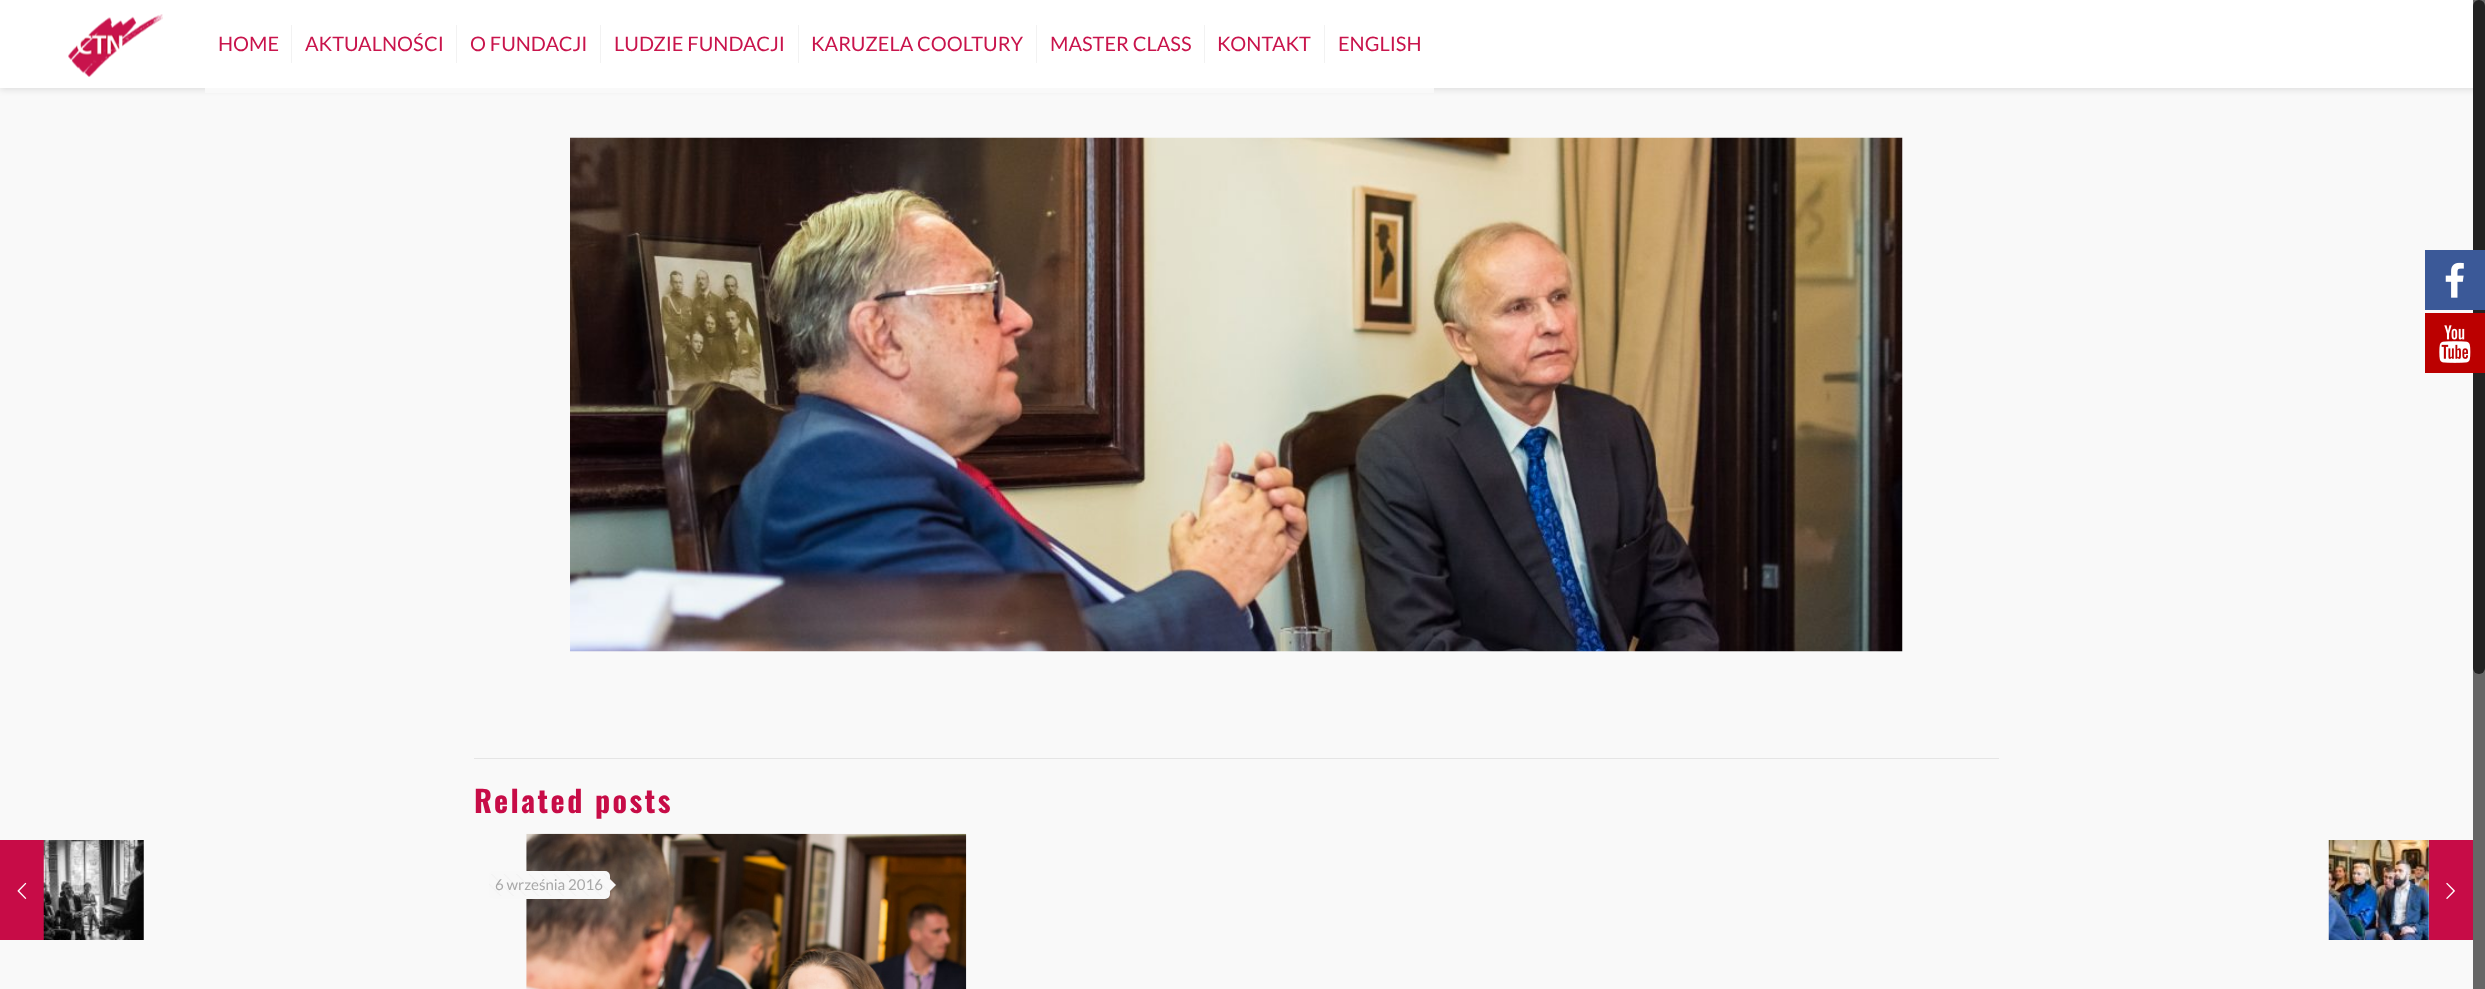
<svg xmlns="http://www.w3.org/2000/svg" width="2485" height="989">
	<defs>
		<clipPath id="clip1"><path d="M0 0H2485V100H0ZM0 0H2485V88H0Z" clip-rule="evenodd" /></clipPath>
	</defs>
	<rect width="100%" height="100%" fill="#F9F9F9" />
	<g clip-path="url(#clip1)">
		<rect x="0" y="3" width="2485" height="87" fill="#000000" fill-opacity="0.1" filter="blur(3px)" />
	</g>
	<rect x="0" y="0" width="2473" height="88" fill="#FFFFFF" fill-opacity="0.97" />
	<image x="68" y="14" width="95" height="63" href="assets/img1.png" />
	<rect x="291" y="25" width="1" height="38" fill="#F2F2F2" />
	<text x="218" y="51" font-family="Lato" font-size="20" fill="#C9144C">HOME</text>
	<rect x="205" y="88" width="1229" height="5" fill="#F9F9F9" />
	<rect x="456" y="25" width="1" height="38" fill="#F2F2F2" />
	<text x="305" y="51" font-family="Lato" font-size="20" fill="#C9144C">AKTUALNOŚCI</text>
	<rect x="600" y="25" width="1" height="38" fill="#F2F2F2" />
	<text x="470" y="51" font-family="Lato" font-size="20" fill="#C9144C">O FUNDACJI</text>
	<rect x="798" y="25" width="1" height="38" fill="#F2F2F2" />
	<text x="614" y="51" font-family="Lato" font-size="20" fill="#C9144C">LUDZIE FUNDACJI</text>
	<rect x="1036" y="25" width="1" height="38" fill="#F2F2F2" />
	<text x="811" y="51" font-family="Lato" font-size="20" fill="#C9144C">KARUZELA COOLTURY</text>
	<rect x="1204" y="25" width="1" height="38" fill="#F2F2F2" />
	<text x="1050" y="51" font-family="Lato" font-size="20" fill="#C9144C">MASTER CLASS</text>
	<rect x="1324" y="25" width="1" height="38" fill="#F2F2F2" />
	<g font-family="Lato" font-size="20" fill="#C9144C">
		<text x="1217" y="51">KONTAKT</text>
		<text x="1338" y="51">ENGLISH</text>
	</g>
	<image x="570" y="137" width="1333" height="515" href="assets/img2.png" />
	<rect x="474" y="758" width="1525" height="1" fill="#E5E5E5" />
	<text x="474" y="813" font-family="Oswald" font-size="30" font-weight="700" letter-spacing="2.5" fill="#C70C47">Related posts</text>
	<image x="526" y="833" width="441" height="156" href="assets/img3.png" />
	<rect x="489" y="871" width="121" height="28" rx="5" fill="#F8F8F8" />
	<image x="489" y="874" width="121" height="22" href="assets/img4.png" />
	<text x="495" y="890" font-family="Lato" font-size="15" fill="#A8A8A8">6 września 2016</text>
	<path d="M610 891V879L616 885Z" fill="#F8F8F8" />
	<rect x="2473" y="0" width="12" height="989" fill="#666666" />
	<rect x="2473" y="0" width="12" height="674" rx="6" fill="#222222" />
	<rect x="2425" y="250" width="60" height="60" fill="#3B5998" />
	<image x="2445" y="262" width="19" height="36" href="assets/img5.png" />
	<rect x="2425" y="313" width="60" height="60" fill="#BB0000" />
	<image x="2439" y="325" width="32" height="38" href="assets/img6.png" />
	<rect x="0" y="840" width="44" height="100" fill="#C70C47" />
	<image x="17" y="882" width="10" height="17" href="assets/img7.png" />
	<image x="43" y="840" width="101" height="100" href="assets/img8.png" />
	<image x="2328" y="840" width="101" height="100" href="assets/img9.png" />
	<rect x="2429" y="840" width="44" height="100" fill="#C70C47" />
	<image x="2446" y="882" width="9" height="17" href="assets/img10.png" />
</svg>
